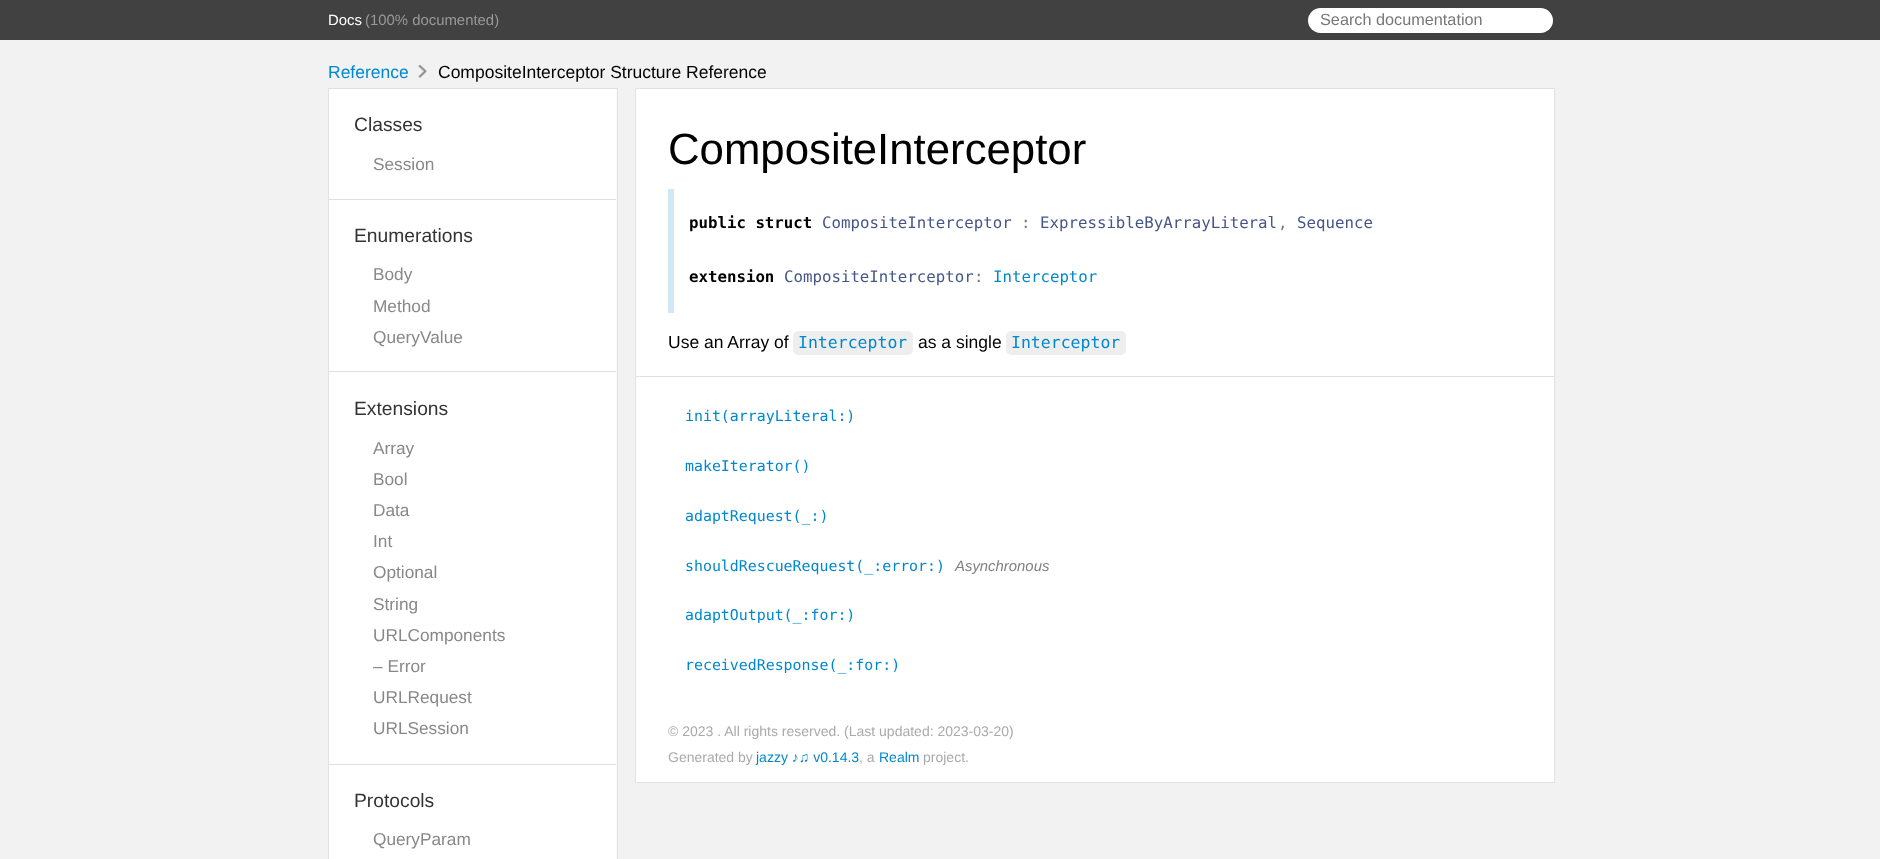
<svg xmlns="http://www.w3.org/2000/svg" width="1880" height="859">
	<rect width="100%" height="100%" fill="#F2F2F2" />
	<rect x="0" y="0" width="1880" height="40" fill="#414141" />
	<text x="328" y="25" font-family="Liberation Sans" font-size="14.9" fill="#FFFFFF">Docs</text>
	<text x="365" y="25" font-family="Liberation Sans" font-size="14.9" fill="#999999">(100% documented)</text>
	<rect x="1308" y="8" width="245" height="25" rx="12.5" fill="#FFFFFF" />
	<text x="1320" y="25" font-family="Liberation Sans" font-size="16.25" fill="#777777">Search documentation</text>
	<text x="328" y="78" font-family="Liberation Sans" font-size="17.5" fill="#0088CC">Reference</text>
	<image x="418" y="65" width="9" height="13" href="assets/img1.png" />
	<text x="438" y="78" font-family="Liberation Sans" font-size="17.5" fill="#000000">CompositeInterceptor Structure Reference</text>
	<rect x="616" y="89" width="1" height="770" fill="#F9F9F9" />
	<rect x="328.5" y="88.5" width="289" height="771" fill="none" stroke="#E2E2E2" />
	<rect x="329" y="89" width="287" height="770" fill="#FFFFFF" />
	<rect x="329" y="199" width="287" height="1" fill="#E2E2E2" />
	<text x="354" y="131" font-family="Liberation Sans" font-size="19.25" fill="#333333">Classes</text>
	<text x="373" y="170" font-family="Liberation Sans" font-size="17.25" fill="#888888">Session</text>
	<rect x="329" y="371" width="287" height="1" fill="#E2E2E2" />
	<text x="354" y="242" font-family="Liberation Sans" font-size="19.25" fill="#333333">Enumerations</text>
	<g font-family="Liberation Sans" font-size="17.25" fill="#888888">
		<text x="373" y="280">Body</text>
		<text x="373" y="312">Method</text>
		<text x="373" y="343">QueryValue</text>
	</g>
	<rect x="329" y="764" width="287" height="1" fill="#E2E2E2" />
	<text x="354" y="415" font-family="Liberation Sans" font-size="19.25" fill="#333333">Extensions</text>
	<g font-family="Liberation Sans" font-size="17.25" fill="#888888">
		<text x="373" y="454">Array</text>
		<text x="373" y="485">Bool</text>
		<text x="373" y="516">Data</text>
		<text x="373" y="547">Int</text>
		<text x="373" y="578">Optional</text>
		<text x="373" y="610">String</text>
		<text x="373" y="641">URLComponents</text>
		<text x="373" y="672">– Error</text>
		<text x="373" y="703">URLRequest</text>
		<text x="373" y="734">URLSession</text>
	</g>
	<text x="354" y="807" font-family="Liberation Sans" font-size="19.25" fill="#333333">Protocols</text>
	<text x="373" y="845" font-family="Liberation Sans" font-size="17.25" fill="#888888">QueryParam</text>
	<rect x="635.5" y="88.5" width="919" height="694" fill="#FFFFFF" stroke="#E2E2E2" />
	<text x="668" y="164" font-family="Liberation Sans" font-size="43.75" fill="#000000">CompositeInterceptor</text>
	<rect x="668" y="189" width="6" height="124" fill="#CDE9F4" />
	<text x="689" y="228" font-family="DejaVu Sans Mono" font-size="15.75" font-weight="700" fill="#000000">public struct</text>
	<text x="822" y="228" font-family="DejaVu Sans Mono" font-size="15.75" fill="#445588">CompositeInterceptor</text>
	<text x="1021" y="228" font-family="DejaVu Sans Mono" font-size="15.75" fill="#777777">:</text>
	<text x="1040" y="228" font-family="DejaVu Sans Mono" font-size="15.75" fill="#445588">ExpressibleByArrayLiteral</text>
	<text x="1278" y="228" font-family="DejaVu Sans Mono" font-size="15.75" fill="#777777">,</text>
	<text x="1297" y="228" font-family="DejaVu Sans Mono" font-size="15.75" fill="#445588">Sequence</text>
	<text x="689" y="282" font-family="DejaVu Sans Mono" font-size="15.75" font-weight="700" fill="#000000">extension</text>
	<text x="784" y="282" font-family="DejaVu Sans Mono" font-size="15.75" fill="#445588">CompositeInterceptor</text>
	<text x="974" y="282" font-family="DejaVu Sans Mono" font-size="15.75" fill="#777777">:</text>
	<text x="993" y="282" font-family="DejaVu Sans Mono" font-size="15.75" fill="#0088CC">Interceptor</text>
	<text x="668" y="348" font-family="Liberation Sans" font-size="17.5" fill="#000000">Use an Array of</text>
	<rect x="793" y="331" width="120" height="24" rx="5" fill="#EEEEEE" />
	<text x="798" y="348" font-family="DejaVu Sans Mono" font-size="16.5" fill="#0088CC">Interceptor</text>
	<text x="918" y="348" font-family="Liberation Sans" font-size="17.5" fill="#000000">as a single</text>
	<rect x="1006" y="331" width="120" height="24" rx="5" fill="#EEEEEE" />
	<text x="1011" y="348" font-family="DejaVu Sans Mono" font-size="16.5" fill="#0088CC">Interceptor</text>
	<rect x="636" y="376" width="918" height="1" fill="#E2E2E2" />
	<g font-family="DejaVu Sans Mono" font-size="14.9" fill="#0088CC">
		<text x="685" y="421">init(arrayLiteral:)</text>
		<text x="685" y="471">makeIterator()</text>
		<text x="685" y="521">adaptRequest(_:)</text>
		<text x="685" y="571">shouldRescueRequest(_:error:)</text>
	</g>
	<text x="955" y="571" font-family="Liberation Sans" font-size="14.9" font-style="italic" fill="#808080">Asynchronous</text>
	<g font-family="DejaVu Sans Mono" font-size="14.9" fill="#0088CC">
		<text x="685" y="620">adaptOutput(_:for:)</text>
		<text x="685" y="670">receivedResponse(_:for:)</text>
	</g>
	<g font-family="Liberation Sans" font-size="14" fill="#AAAAAA">
		<text x="668" y="736">© 2023 . All rights reserved. (Last updated: 2023-03-20)</text>
		<text x="668" y="762">Generated by</text>
	</g>
	<text x="756" y="762" font-family="Liberation Sans" font-size="14" fill="#0088CC">jazzy ♪♫ v0.14.3</text>
	<text x="859" y="762" font-family="Liberation Sans" font-size="14" fill="#AAAAAA">, a</text>
	<text x="879" y="762" font-family="Liberation Sans" font-size="14" fill="#0088CC">Realm</text>
	<text x="923" y="762" font-family="Liberation Sans" font-size="14" fill="#AAAAAA">project.</text>
</svg>
